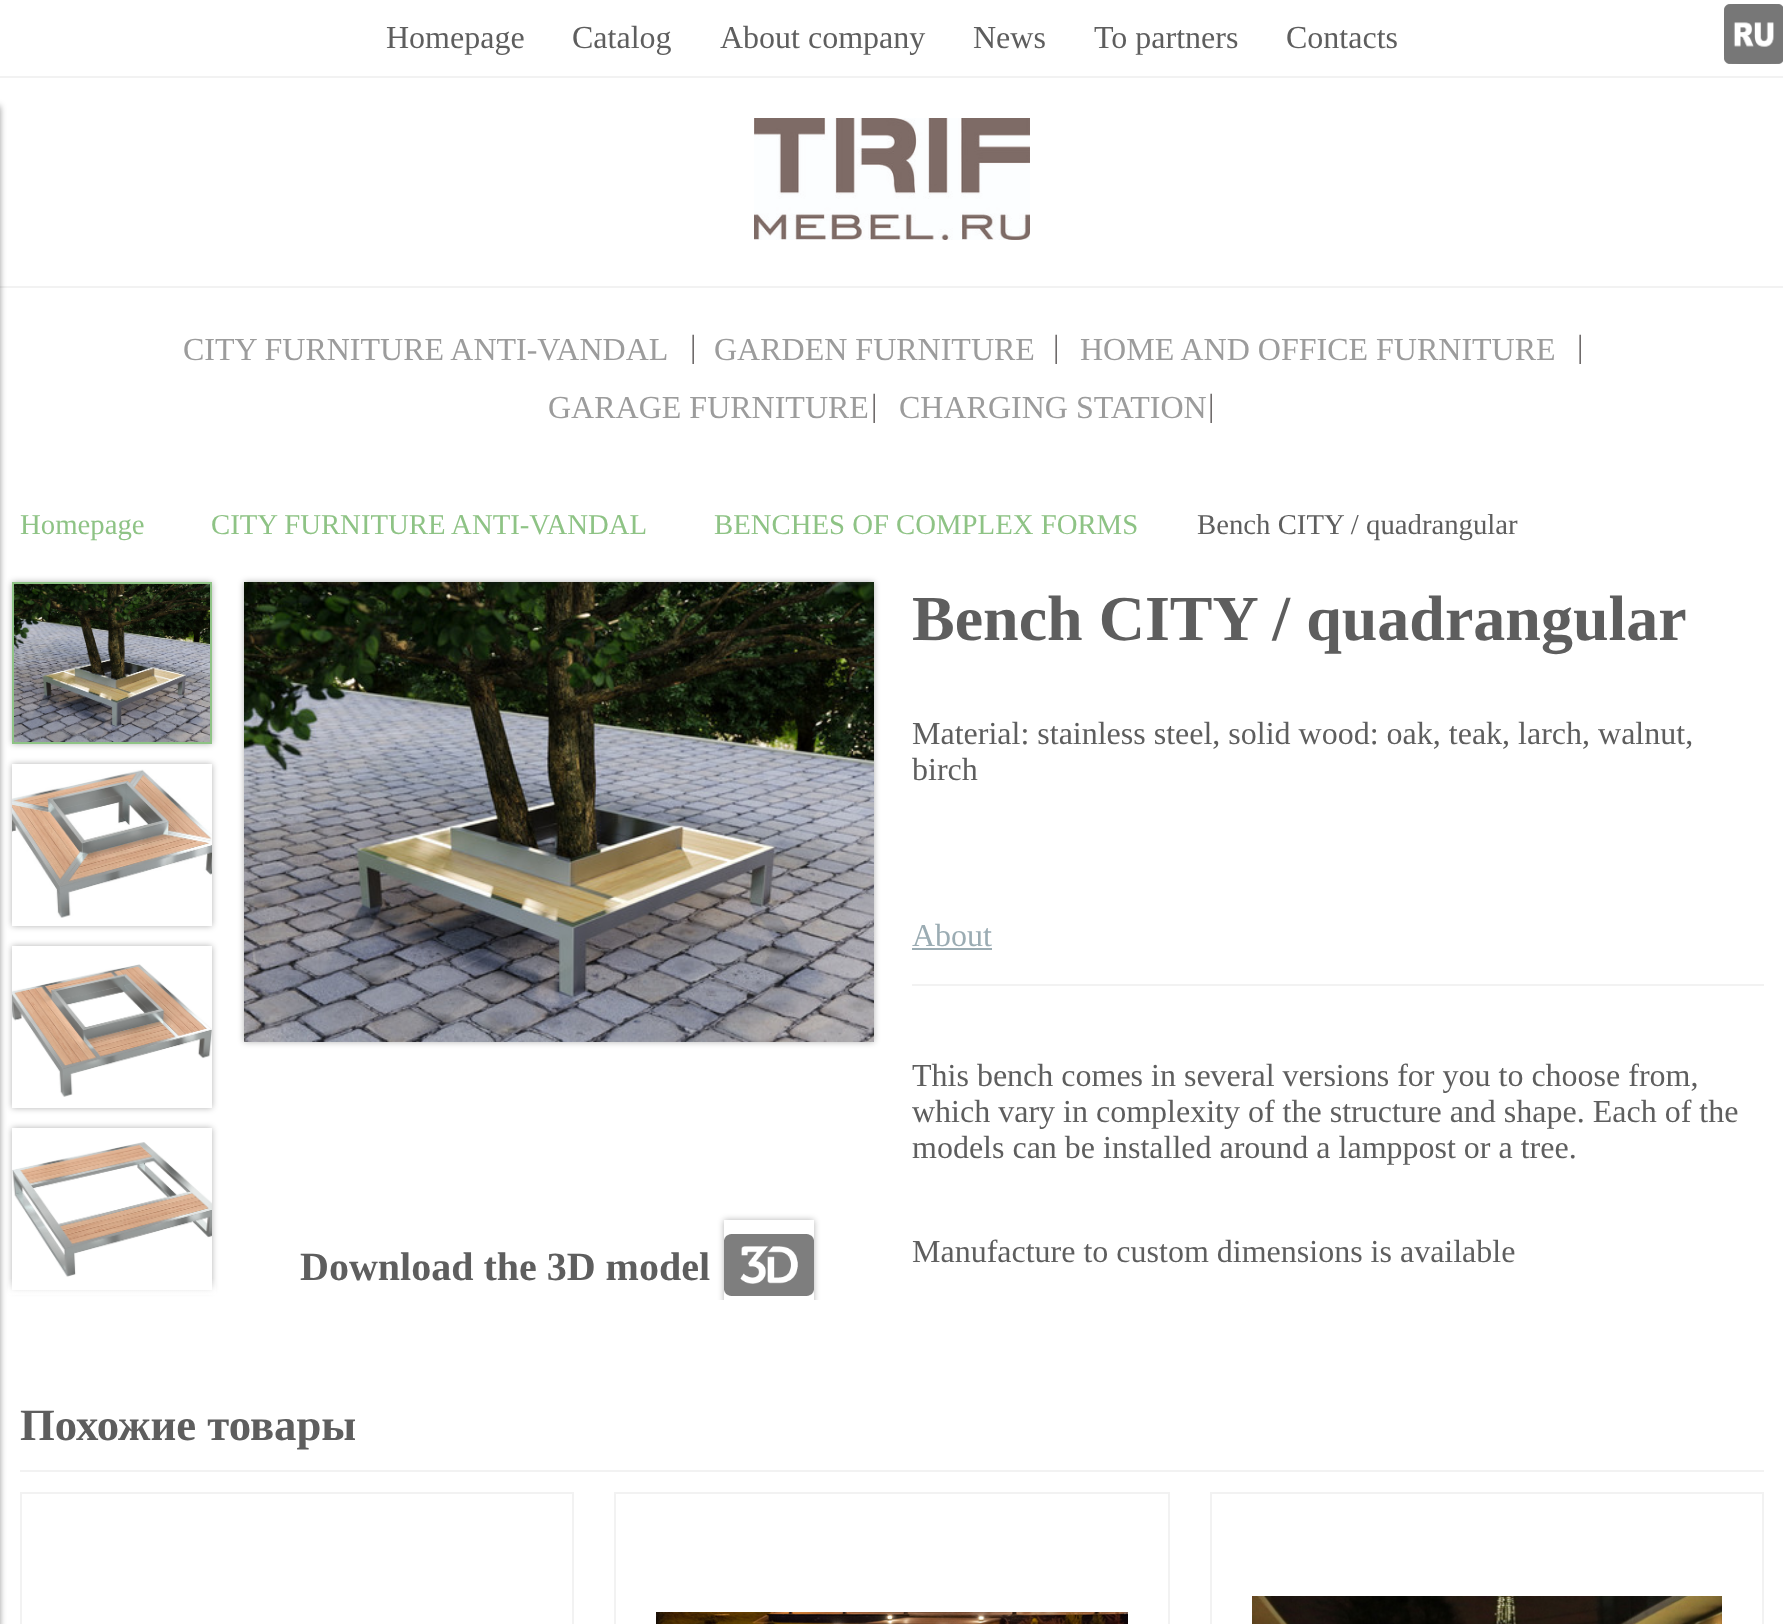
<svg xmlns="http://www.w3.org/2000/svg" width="1783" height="1624">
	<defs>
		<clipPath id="clip1"><path d="M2 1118H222V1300H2ZM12 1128H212V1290H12Z" clip-rule="evenodd" /></clipPath>
		<linearGradient id="g1" gradientUnits="userSpaceOnUse" x1="112" y1="1276" x2="112" y2="1296"><stop offset="0.1" stop-color="#FFFFFF" stop-opacity="0" /><stop offset="1" stop-color="#FFFFFF" /></linearGradient>
		<clipPath id="clip2"><path d="M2 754H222V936H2ZM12 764H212V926H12Z" clip-rule="evenodd" /></clipPath>
		<clipPath id="clip3"><path d="M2 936H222V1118H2ZM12 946H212V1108H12Z" clip-rule="evenodd" /></clipPath>
		<clipPath id="clip4"><rect x="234" y="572" width="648" height="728" /></clipPath>
		<clipPath id="clip5"><path d="M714 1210H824V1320H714ZM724 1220H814V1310H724Z" clip-rule="evenodd" /></clipPath>
	</defs>
	<rect width="100%" height="100%" fill="#FFFFFF" />
	<rect x="0" y="286" width="1783" height="2" fill="#F2F2F2" />
	<g clip-path="url(#clip1)">
		<rect x="12" y="1128" width="200" height="162" fill="#000000" fill-opacity="0.3" filter="blur(3px)" />
	</g>
	<rect x="8" y="1279" width="208" height="16" fill="url(#g1)" />
	<rect x="-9" y="106" width="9" height="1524" fill="#000000" fill-opacity="0.4" filter="blur(3px)" />
	<rect x="0" y="76" width="1783" height="2" fill="#F2F2F2" />
	<g font-family="Liberation Serif" font-size="32" fill="#5E5E5E">
		<text x="386" y="48">Homepage</text>
		<text x="572" y="48">Catalog</text>
		<text x="720" y="48">About company</text>
		<text x="973" y="48">News</text>
		<text x="1094" y="48">To partners</text>
		<text x="1286" y="48">Contacts</text>
	</g>
	<image x="1724" y="4" width="59" height="60" href="assets/img1.png" />
	<image x="754" y="118" width="276" height="122" href="assets/img2.png" />
	<text x="183" y="360" font-family="Liberation Serif" font-size="32" fill="#9C9C9C">CITY FURNITURE ANTI-VANDAL</text>
	<text x="690" y="357" font-family="Liberation Serif" font-size="32" fill="#6F6B6B">|</text>
	<text x="714" y="360" font-family="Liberation Serif" font-size="32" fill="#9C9C9C">GARDEN FURNITURE</text>
	<text x="1053" y="357" font-family="Liberation Serif" font-size="32" fill="#6F6B6B">|</text>
	<text x="1080" y="360" font-family="Liberation Serif" font-size="32" fill="#9C9C9C">HOME AND OFFICE FURNITURE</text>
	<text x="1577" y="357" font-family="Liberation Serif" font-size="32" fill="#6F6B6B">|</text>
	<text x="548" y="418" font-family="Liberation Serif" font-size="32" fill="#9C9C9C">GARAGE FURNITURE</text>
	<text x="871" y="416" font-family="Liberation Serif" font-size="32" fill="#6F6B6B">|</text>
	<text x="899" y="418" font-family="Liberation Serif" font-size="32" fill="#9C9C9C">CHARGING STATION</text>
	<text x="1208" y="416" font-family="Liberation Serif" font-size="32" fill="#6F6B6B">|</text>
	<g font-family="Liberation Serif" font-size="28.75" fill="#8EC385">
		<text x="20" y="534">Homepage</text>
		<text x="211" y="534">CITY FURNITURE ANTI-VANDAL</text>
		<text x="714" y="534">BENCHES OF COMPLEX FORMS</text>
	</g>
	<text x="1197" y="534" font-family="Liberation Serif" font-size="28.75" fill="#5E5E5E">Bench CITY / quadrangular</text>
	<text x="912" y="640" font-family="Liberation Serif" font-size="64" font-weight="700" fill="#5E5E5E">Bench CITY / quadrangular</text>
	<g font-family="Liberation Serif" font-size="32" fill="#5E5E5E">
		<text x="912" y="744">Material: stainless steel, solid wood: oak, teak, larch, walnut,</text>
		<text x="912" y="780">birch</text>
	</g>
	<rect x="912" y="984" width="852" height="2" fill="#F2F2F2" />
	<text x="912" y="946" font-family="Liberation Serif" font-size="32" fill="#9BACB3">About</text>
	<rect x="912" y="948" width="80" height="2" fill="#9BACB3" />
	<g font-family="Liberation Serif" font-size="32" fill="#5E5E5E">
		<text x="912" y="1086">This bench comes in several versions for you to choose from,</text>
		<text x="912" y="1122">which vary in complexity of the structure and shape. Each of the</text>
		<text x="912" y="1158">models can be installed around a lamppost or a tree.</text>
		<text x="912" y="1262">Manufacture to custom dimensions is available</text>
	</g>
	<rect x="12" y="582" width="200" height="162" fill="#000000" fill-opacity="0.3" filter="blur(3px)" />
	<rect x="13" y="583" width="198" height="160" fill="none" stroke="#8EC385" stroke-width="2" />
	<image x="14" y="584" width="196" height="158" href="assets/img3.png" />
	<g clip-path="url(#clip2)">
		<rect x="12" y="764" width="200" height="162" fill="#000000" fill-opacity="0.3" filter="blur(3px)" />
	</g>
	<image x="12" y="769" width="200" height="149" href="assets/img4.png" />
	<g clip-path="url(#clip3)">
		<rect x="12" y="946" width="200" height="162" fill="#000000" fill-opacity="0.3" filter="blur(3px)" />
	</g>
	<image x="12" y="964" width="200" height="133" href="assets/img5.png" />
	<image x="12" y="1142" width="200" height="135" href="assets/img6.png" />
	<rect x="244" y="582" width="630" height="460" fill="#000000" fill-opacity="0.3" filter="blur(3px)" />
	<image x="244" y="582" width="630" height="460" href="assets/img7.png" />
	<g clip-path="url(#clip4)">
		<g clip-path="url(#clip5)">
			<rect x="724" y="1220" width="90" height="90" fill="#000000" fill-opacity="0.3" filter="blur(3px)" />
		</g>
	</g>
	<text x="300" y="1280" font-family="Liberation Serif" font-size="40" font-weight="700" fill="#5E5E5E">Download the 3D model</text>
	<image x="724" y="1234" width="90" height="62" href="assets/img8.png" />
	<rect x="20" y="1470" width="1744" height="2" fill="#F2F2F2" />
	<text x="20" y="1440" font-family="Liberation Serif" font-size="44.75" font-weight="700" fill="#5E5E5E">Похожие товары</text>
	<rect x="21" y="1493" width="552" height="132" fill="none" stroke="#F2F2F2" stroke-width="2" />
	<rect x="615" y="1493" width="554" height="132" fill="none" stroke="#F2F2F2" stroke-width="2" />
	<image x="656" y="1612" width="472" height="12" href="assets/img9.png" />
	<rect x="1211" y="1493" width="552" height="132" fill="none" stroke="#F2F2F2" stroke-width="2" />
	<image x="1252" y="1596" width="470" height="28" href="assets/img10.png" />
</svg>
